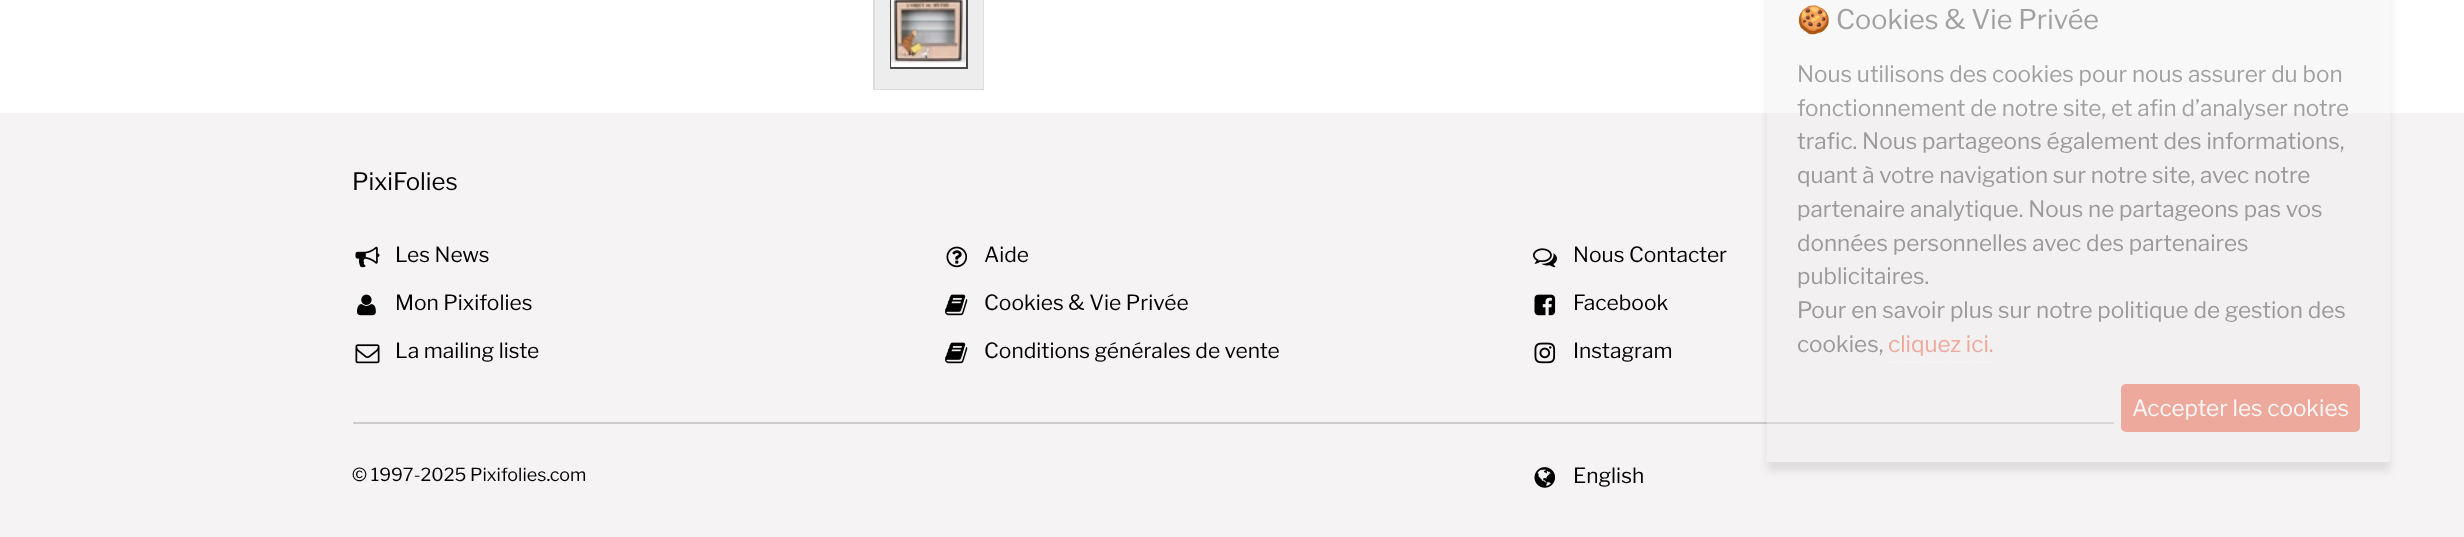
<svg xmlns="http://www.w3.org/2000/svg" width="2464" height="537">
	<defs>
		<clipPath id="clip1"><path d="M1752 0H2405V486H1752ZM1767-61H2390V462H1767Z" clip-rule="evenodd" /></clipPath>
	</defs>
	<rect width="100%" height="100%" fill="#FFFFFF" />
	<rect x="874" y="-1" width="109" height="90" fill="none" stroke="#DDDDDD" stroke-width="2" />
	<rect x="875" y="0" width="108" height="89" fill="#EDEDED" />
	<rect x="891" y="-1" width="76" height="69" fill="none" stroke="#494949" stroke-width="2" />
	<image x="891" y="0" width="75" height="67" href="assets/img1.png" />
	<rect x="0" y="113" width="2464" height="424" fill="#F5F3F4" />
	<text x="352" y="190" font-family="Libre Franklin" font-size="24" font-weight="100" fill="#000000">PixiFolies</text>
	<image x="355" y="246" width="25" height="22" href="assets/img2.png" />
	<text x="395" y="262" font-family="Libre Franklin" font-size="21" font-weight="100" fill="#000000">Les News</text>
	<image x="357" y="294" width="19" height="22" href="assets/img3.png" />
	<text x="395" y="310" font-family="Libre Franklin" font-size="21" font-weight="100" fill="#000000">Mon Pixifolies</text>
	<image x="355" y="344" width="25" height="20" href="assets/img4.png" />
	<text x="395" y="358" font-family="Libre Franklin" font-size="21" font-weight="100" fill="#000000">La mailing liste</text>
	<image x="946" y="246" width="22" height="22" href="assets/img5.png" />
	<text x="984" y="262" font-family="Libre Franklin" font-size="21" font-weight="100" fill="#000000">Aide</text>
	<image x="945" y="294" width="23" height="22" href="assets/img6.png" />
	<text x="984" y="310" font-family="Libre Franklin" font-size="21" font-weight="100" fill="#000000">Cookies &amp; Vie Privée</text>
	<image x="945" y="342" width="23" height="22" href="assets/img6.png" />
	<text x="984" y="358" font-family="Libre Franklin" font-size="21" font-weight="100" fill="#000000">Conditions générales de vente</text>
	<image x="1533" y="248" width="24" height="20" href="assets/img7.png" />
	<text x="1573" y="262" font-family="Libre Franklin" font-size="21" font-weight="100" fill="#000000">Nous Contacter</text>
	<image x="1534" y="294" width="22" height="22" href="assets/img8.png" />
	<text x="1573" y="310" font-family="Libre Franklin" font-size="21" font-weight="100" fill="#000000">Facebook</text>
	<image x="1534" y="342" width="22" height="22" href="assets/img9.png" />
	<text x="1573" y="358" font-family="Libre Franklin" font-size="21" font-weight="100" fill="#000000">Instagram</text>
	<rect x="353" y="422" width="1761" height="2" fill="#CCCCCC" />
	<text x="352" y="481" font-family="Libre Franklin" font-size="18" font-weight="100" fill="#000000">© 1997-2025 Pixifolies.com</text>
	<image x="1534" y="467" width="22" height="21" href="assets/img10.png" />
	<text x="1573" y="483" font-family="Libre Franklin" font-size="21" font-weight="100" fill="#000000">English</text>
	<g clip-path="url(#clip1)">
		<rect x="1767" y="-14" width="623" height="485" fill="#000000" fill-opacity="0.09" filter="blur(4.5px)" />
	</g>
	<rect x="1767" y="0" width="623" height="462" fill="#EDEDED" fill-opacity="0.37" />
	<text x="1797" y="29" font-family="Noto Color Emoji" font-size="27" fill="#A1A1A1">🍪</text>
	<text x="1836" y="29" font-family="Libre Franklin" font-size="27" font-weight="100" fill="#A1A1A1">Cookies &amp; Vie Privée</text>
	<g font-family="Libre Franklin" font-size="22.5" font-weight="100" fill="#A1A1A1">
		<text x="1797" y="82">Nous utilisons des cookies pour nous assurer du bon</text>
		<text x="1797" y="116">fonctionnement de notre site, et afin d’analyser notre</text>
	</g>
	<g font-family="Libre Franklin" font-size="22.5" font-weight="100" fill="#9B9A9A">
		<text x="1797" y="149">trafic. Nous partageons également des informations,</text>
		<text x="1797" y="183">quant à votre navigation sur notre site, avec notre</text>
		<text x="1797" y="217">partenaire analytique. Nous ne partageons pas vos</text>
		<text x="1797" y="251">données personnelles avec des partenaires</text>
		<text x="1797" y="284">publicitaires.</text>
		<text x="1797" y="318">Pour en savoir plus sur notre politique de gestion des</text>
		<text x="1797" y="352">cookies,</text>
	</g>
	<text x="1888" y="352" font-family="Libre Franklin" font-size="22.5" font-weight="100" fill="#EDAA9C">cliquez ici.</text>
	<path d="M1888.5 362H1993.5" fill="none" stroke="#F7F5F6" stroke-width="1.5" stroke-dasharray="1.5 1.5" />
	<rect x="2121" y="384" width="239" height="48" rx="5" fill="#EDAA9C" />
	<text x="2132" y="416" font-family="Libre Franklin" font-size="22.5" font-weight="100" fill="#F9F7F8">Accepter les cookies</text>
</svg>
